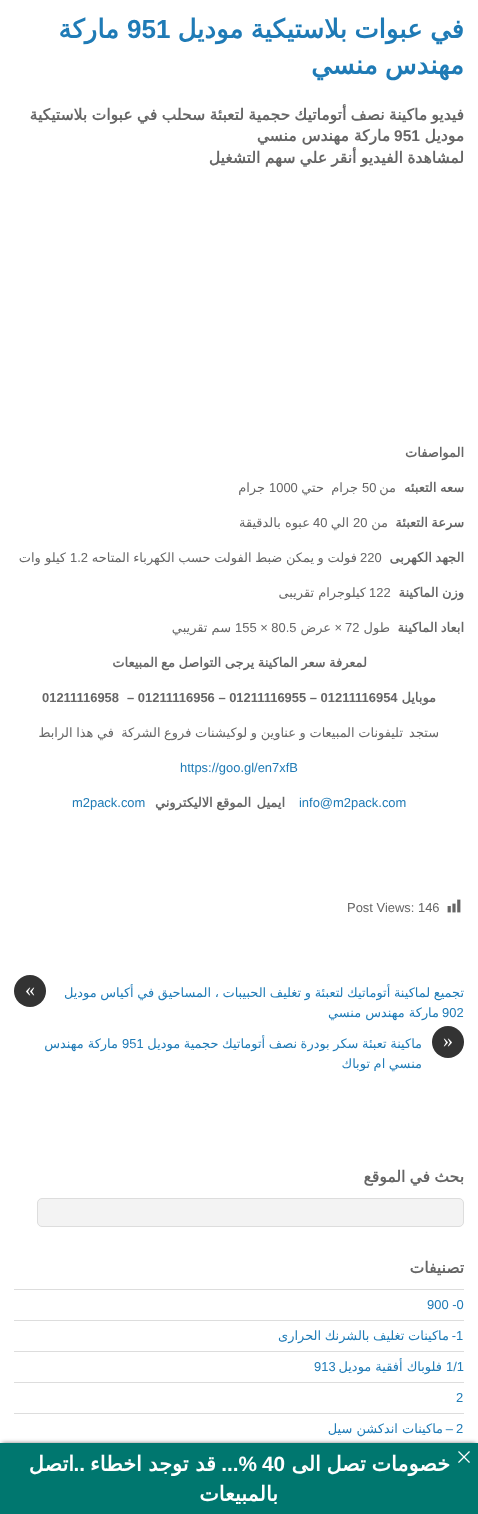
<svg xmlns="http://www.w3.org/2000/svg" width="478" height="1514">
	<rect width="100%" height="100%" fill="#FFFFFF" />
	<text x="464" y="38" word-spacing="-1" font-family="DejaVu Sans" font-size="26" font-weight="700" direction="rtl" fill="#1F7BB6">في عبوات بلاستيكية موديل</text>
	<text x="127" y="38" font-family="Liberation Sans" font-size="26" font-weight="700" fill="#1F7BB6">951</text>
	<g font-family="DejaVu Sans" font-size="26" font-weight="700" direction="rtl" fill="#1F7BB6">
		<text x="119" y="38">ماركة</text>
		<text x="464" y="74" word-spacing="-1">مهندس منسي</text>
	</g>
	<g font-family="DejaVu Sans" font-size="15.55" font-weight="700" direction="rtl" fill="#666666">
		<text x="464" y="120" word-spacing="-0.6">فيديو ماكينة نصف أتوماتيك حجمية لتعبئة سحلب في عبوات بلاستيكية</text>
		<text x="464" y="141">موديل</text>
	</g>
	<text x="394" y="141" font-family="Liberation Sans" font-size="15.55" font-weight="700" fill="#666666">951</text>
	<g font-family="DejaVu Sans" font-size="15.55" font-weight="700" direction="rtl" fill="#666666">
		<text x="390" y="141">ماركة مهندس منسي</text>
		<text x="464" y="163" word-spacing="-0.6">لمشاهدة الفيديو أنقر علي سهم التشغيل</text>
	</g>
	<g font-family="DejaVu Sans" font-size="12.95" font-weight="700" direction="rtl" fill="#666666">
		<text x="464" y="457">المواصفات</text>
		<text x="464" y="492" word-spacing="-0.5">سعه التعبئه</text>
	</g>
	<text x="396" y="492" font-family="DejaVu Sans" font-size="12.95" direction="rtl" fill="#666666">من</text>
	<text x="362" y="492" font-family="Liberation Sans" font-size="12.95" fill="#666666">50</text>
	<g font-family="DejaVu Sans" font-size="12.95" direction="rtl" fill="#666666">
		<text x="358" y="492">جرام</text>
		<text x="324" y="492">حتي</text>
	</g>
	<text x="269" y="492" font-family="Liberation Sans" font-size="12.95" fill="#666666">1000</text>
	<text x="265" y="492" font-family="DejaVu Sans" font-size="12.95" direction="rtl" fill="#666666">جرام</text>
	<text x="464" y="527" word-spacing="-0.5" font-family="DejaVu Sans" font-size="12.95" font-weight="700" direction="rtl" fill="#666666">سرعة التعبئة</text>
	<text x="388" y="527" font-family="DejaVu Sans" font-size="12.95" direction="rtl" fill="#666666">من</text>
	<text x="353" y="527" font-family="Liberation Sans" font-size="12.95" fill="#666666">20</text>
	<text x="349" y="527" font-family="DejaVu Sans" font-size="12.95" direction="rtl" fill="#666666">الي</text>
	<text x="313" y="527" font-family="Liberation Sans" font-size="12.95" fill="#666666">40</text>
	<text x="310" y="527" font-family="DejaVu Sans" font-size="12.95" direction="rtl" fill="#666666">عبوه بالدقيقة</text>
	<text x="464" y="562" word-spacing="-0.5" font-family="DejaVu Sans" font-size="12.95" font-weight="700" direction="rtl" fill="#666666">الجهد الكهربى</text>
	<text x="360" y="562" font-family="Liberation Sans" font-size="12.95" fill="#666666">220</text>
	<text x="357" y="562" word-spacing="-0.5" font-family="DejaVu Sans" font-size="12.95" direction="rtl" fill="#666666">فولت و يمكن ضبط الفولت حسب الكهرباء المتاحه</text>
	<text x="70" y="562" font-family="Liberation Sans" font-size="12.95" fill="#666666">1.2</text>
	<text x="66" y="562" font-family="DejaVu Sans" font-size="12.95" direction="rtl" fill="#666666">كيلو وات</text>
	<text x="464" y="597" word-spacing="-0.5" font-family="DejaVu Sans" font-size="12.95" font-weight="700" direction="rtl" fill="#666666">وزن الماكينة</text>
	<text x="369" y="597" font-family="Liberation Sans" font-size="12.95" fill="#666666">122</text>
	<text x="366" y="597" font-family="DejaVu Sans" font-size="12.95" direction="rtl" fill="#666666">كيلوجرام تقريبى</text>
	<text x="464" y="632" word-spacing="-0.5" font-family="DejaVu Sans" font-size="12.95" font-weight="700" direction="rtl" fill="#666666">ابعاد الماكينة</text>
	<text x="390" y="632" font-family="DejaVu Sans" font-size="12.95" direction="rtl" fill="#666666">طول</text>
	<text x="345" y="632" font-family="Liberation Sans" font-size="12.95" fill="#666666">72</text>
	<text x="342" y="632" font-family="Liberation Sans" font-size="12.95" direction="rtl" fill="#666666">×</text>
	<text x="331" y="632" font-family="DejaVu Sans" font-size="12.95" direction="rtl" fill="#666666">عرض</text>
	<text x="235" y="632" font-family="Liberation Sans" font-size="12.95" fill="#666666">155 × 80.5</text>
	<text x="231" y="632" font-family="DejaVu Sans" font-size="12.95" direction="rtl" fill="#666666">سم تقريبي</text>
	<g font-family="DejaVu Sans" font-size="12.95" font-weight="700" direction="rtl" fill="#666666">
		<text x="367" y="667" word-spacing="-0.5">لمعرفة سعر الماكينة يرجى التواصل مع المبيعات</text>
		<text x="436" y="702">موبايل</text>
	</g>
	<g font-family="Liberation Sans" font-size="12.95" font-weight="700" fill="#666666">
		<text x="127" y="702">– 01211116956 – 01211116955 – 01211116954</text>
		<text x="42" y="702">01211116958</text>
	</g>
	<g font-family="DejaVu Sans" font-size="12.95" direction="rtl" fill="#666666">
		<text x="439" y="737">ستجد</text>
		<text x="403" y="737" word-spacing="-0.5">تليفونات المبيعات و عناوين و لوكيشنات فروع الشركة</text>
		<text x="114" y="737" word-spacing="-0.5">في هذا الرابط</text>
	</g>
	<g font-family="Liberation Sans" font-size="12.95" fill="#1F7BB6">
		<text x="180" y="772">https://goo.gl/en7xfB</text>
		<text x="299" y="807">info@m2pack.com</text>
	</g>
	<g font-family="DejaVu Sans" font-size="12.95" font-weight="700" direction="rtl" fill="#666666">
		<text x="285" y="807">ايميل</text>
		<text x="251" y="807" word-spacing="-0.5">الموقع الاليكتروني</text>
	</g>
	<text x="72" y="807" font-family="Liberation Sans" font-size="12.95" fill="#1F7BB6">m2pack.com</text>
	<image x="447" y="899" width="14" height="14" href="assets/img1.png" />
	<text x="347" y="912" font-family="Liberation Sans" font-size="12.95" fill="#666666">Post Views: 146</text>
	<text x="464" y="997" word-spacing="-0.5" font-family="DejaVu Sans" font-size="12.95" direction="rtl" fill="#1F7BB6">تجميع لماكينة أتوماتيك لتعبئة و تغليف الحبيبات ، المساحيق في أكياس موديل</text>
	<circle cx="30" cy="991" r="16" fill="#333333" />
	<text x="25" y="996" font-family="Liberation Serif" font-size="20" fill="#FFFFFF">«</text>
	<text x="442" y="1017" font-family="Liberation Sans" font-size="12.95" fill="#1F7BB6">902</text>
	<text x="439" y="1017" font-family="DejaVu Sans" font-size="12.95" direction="rtl" fill="#1F7BB6">ماركة مهندس منسي</text>
	<circle cx="448" cy="1042" r="16" fill="#333333" />
	<text x="443" y="1047" font-family="Liberation Serif" font-size="20" fill="#FFFFFF">»</text>
	<text x="422" y="1048" word-spacing="-0.5" font-family="DejaVu Sans" font-size="12.95" direction="rtl" fill="#1F7BB6">ماكينة تعبئة سكر بودرة نصف أتوماتيك حجمية موديل</text>
	<text x="122" y="1048" font-family="Liberation Sans" font-size="12.95" fill="#1F7BB6">951</text>
	<g font-family="DejaVu Sans" font-size="12.95" direction="rtl" fill="#1F7BB6">
		<text x="118" y="1048">ماركة مهندس</text>
		<text x="422" y="1068" word-spacing="-0.5">منسي ام توباك</text>
	</g>
	<text x="464" y="1182" word-spacing="-0.6" font-family="DejaVu Sans" font-size="15.55" font-weight="700" direction="rtl" fill="#666666">بحث في الموقع</text>
	<rect x="37.5" y="1198.5" width="426" height="28" rx="4.5" fill="#F3F3F3" stroke="#DDDDDD" />
	<text x="464" y="1273" font-family="DejaVu Sans" font-size="15.55" font-weight="700" direction="rtl" fill="#666666">تصنيفات</text>
	<rect x="14" y="1289" width="450" height="1" fill="#DDDDDD" />
	<text x="427" y="1309" font-family="Liberation Sans" font-size="12.95" fill="#1F7BB6">900 -0</text>
	<rect x="14" y="1320" width="450" height="1" fill="#DDDDDD" />
	<text x="456" y="1340" font-family="Liberation Sans" font-size="12.95" fill="#1F7BB6">1</text>
	<text x="456" y="1340" font-family="Liberation Sans" font-size="12.95" direction="rtl" fill="#1F7BB6">-</text>
	<text x="449" y="1340" word-spacing="-0.5" font-family="DejaVu Sans" font-size="12.95" direction="rtl" fill="#1F7BB6">ماكينات تغليف بالشرنك الحرارى</text>
	<rect x="14" y="1351" width="450" height="1" fill="#DDDDDD" />
	<text x="446" y="1371" font-family="Liberation Sans" font-size="12.95" fill="#1F7BB6">1/1</text>
	<text x="442" y="1371" font-family="DejaVu Sans" font-size="12.95" direction="rtl" fill="#1F7BB6">فلوباك أفقية موديل</text>
	<text x="314" y="1371" font-family="Liberation Sans" font-size="12.95" fill="#1F7BB6">913</text>
	<rect x="14" y="1382" width="450" height="1" fill="#DDDDDD" />
	<text x="456" y="1402" font-family="Liberation Sans" font-size="12.95" fill="#1F7BB6">2</text>
	<rect x="14" y="1413" width="450" height="1" fill="#DDDDDD" />
	<text x="456" y="1433" font-family="Liberation Sans" font-size="12.95" fill="#1F7BB6">2</text>
	<text x="453" y="1433" font-family="Liberation Sans" font-size="12.95" direction="rtl" fill="#1F7BB6">–</text>
	<text x="443" y="1433" font-family="DejaVu Sans" font-size="12.95" direction="rtl" fill="#1F7BB6">ماكينات اندكشن سيل</text>
	<rect x="2" y="1443" width="474" height="67" fill="#000000" fill-opacity="0.5" filter="blur(2px)" />
	<rect x="0" y="1443" width="478" height="71" fill="#00776F" />
	<image x="458" y="1451" width="12" height="12" href="assets/img2.png" />
	<text x="450" y="1471" word-spacing="-1" font-family="DejaVu Sans" font-size="20.75" font-weight="700" direction="rtl" fill="#FFFFFF">خصومات تصل الى</text>
	<text x="262" y="1471" font-family="Liberation Sans" font-size="20.75" font-weight="700" fill="#FFFFFF">40</text>
	<text x="257" y="1471" font-family="Liberation Sans" font-size="20.75" font-weight="700" direction="rtl" fill="#FFFFFF">%...</text>
	<text x="216" y="1471" font-family="DejaVu Sans" font-size="20.75" font-weight="700" direction="rtl" fill="#FFFFFF">قد توجد اخطاء</text>
	<text x="85" y="1471" font-family="Liberation Sans" font-size="20.75" font-weight="700" direction="rtl" fill="#FFFFFF">..</text>
	<g font-family="DejaVu Sans" font-size="20.75" font-weight="700" direction="rtl" fill="#FFFFFF">
		<text x="74" y="1471">اتصل</text>
		<text x="278" y="1501">بالمبيعات</text>
	</g>
</svg>
